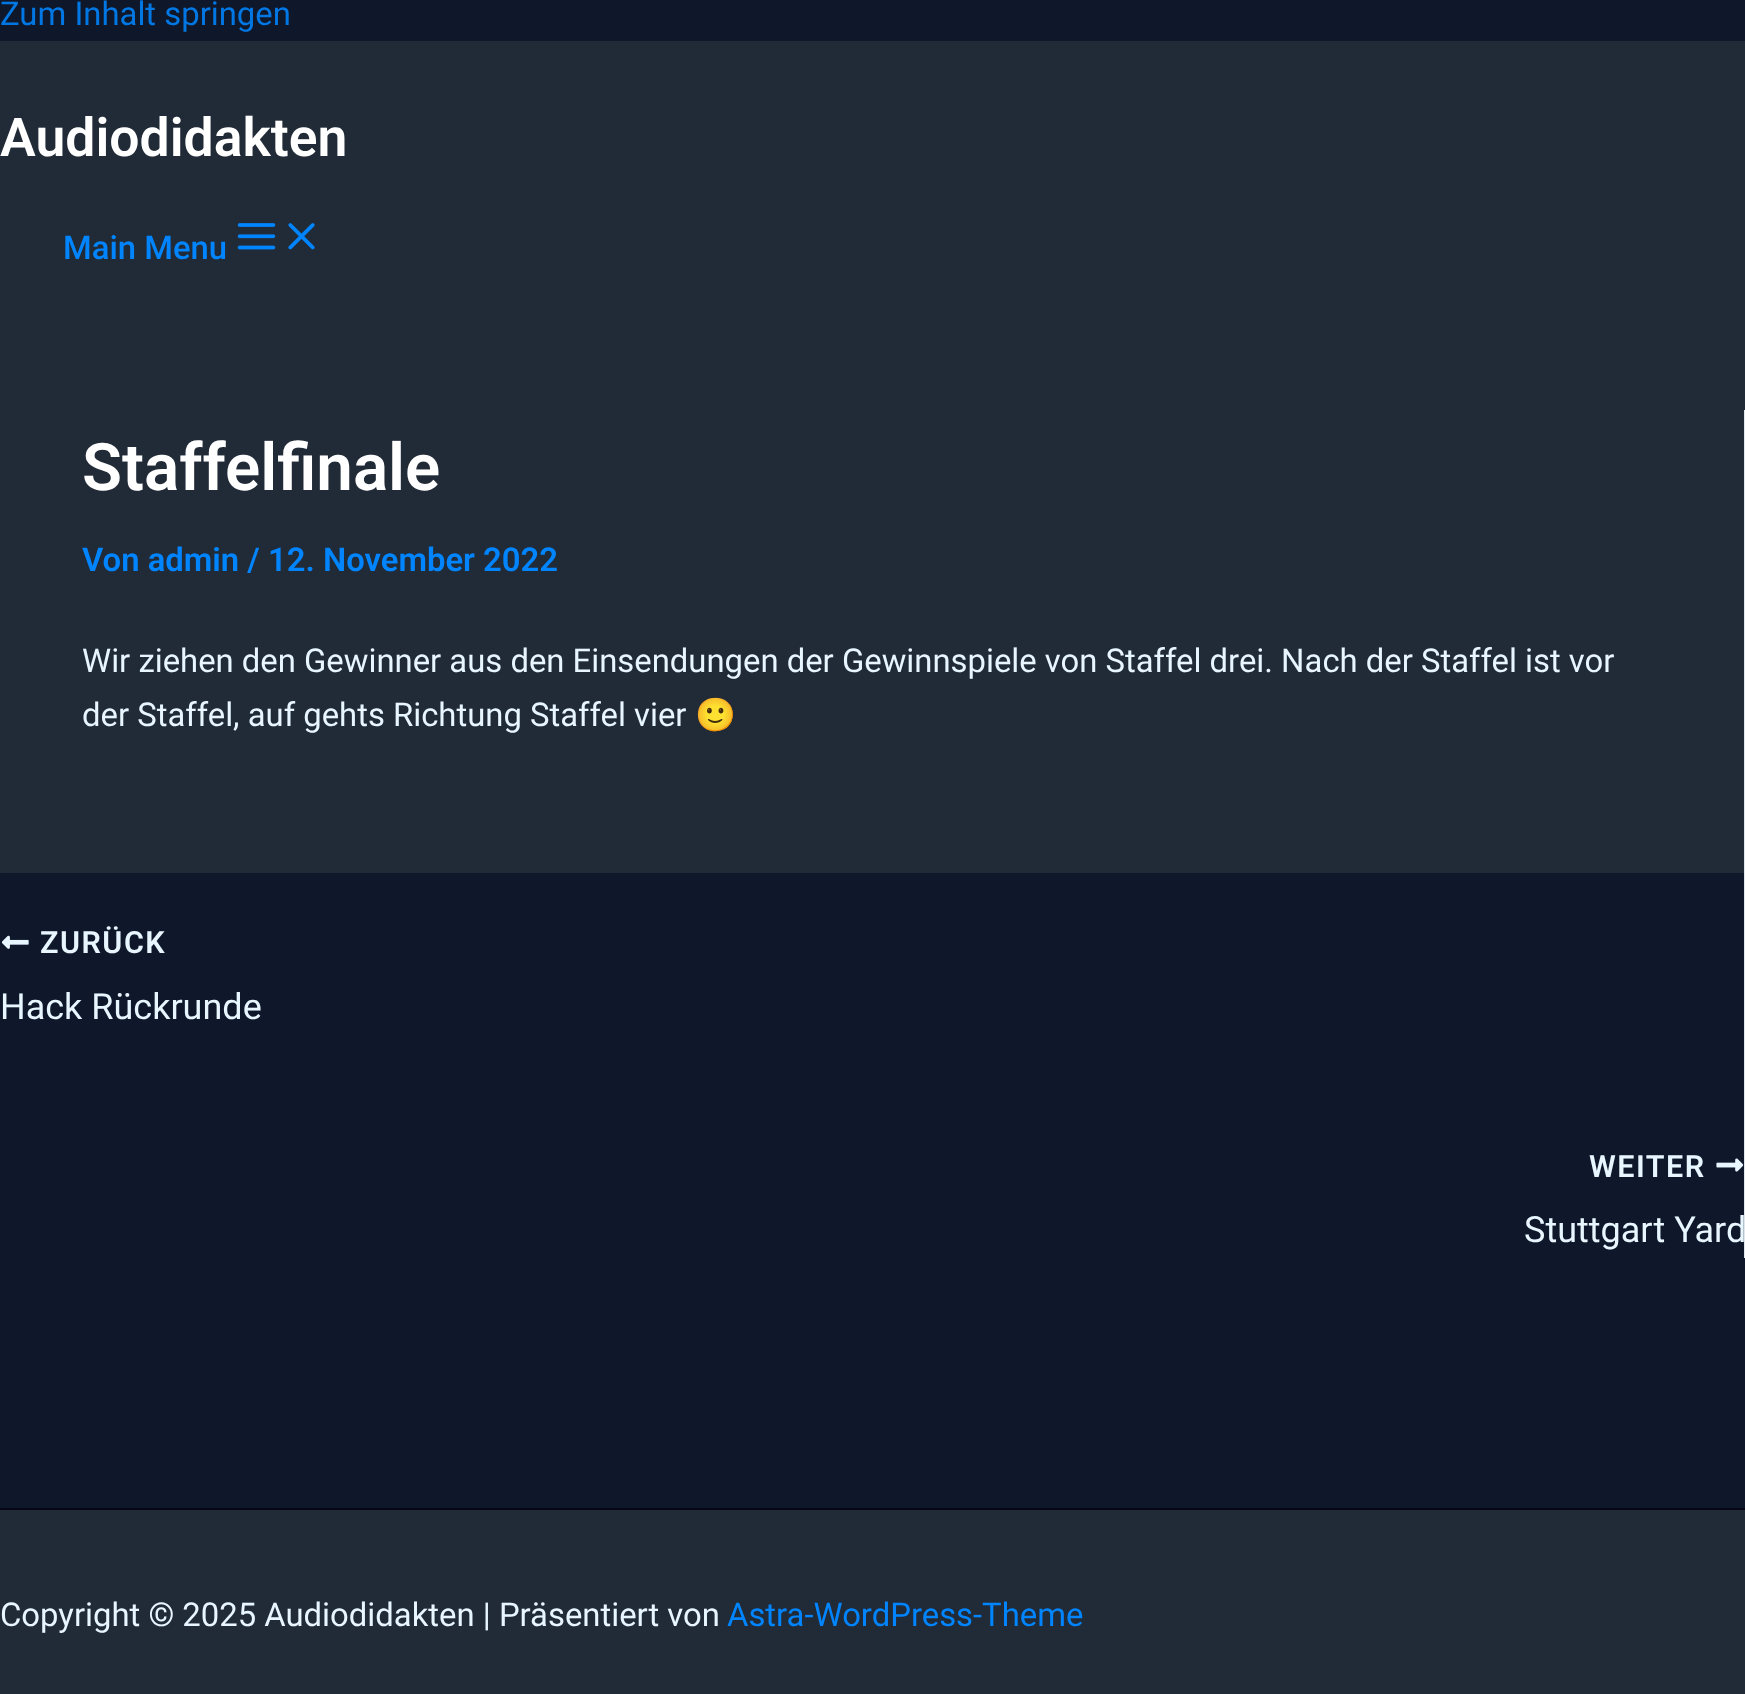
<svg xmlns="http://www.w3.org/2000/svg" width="1745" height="1694">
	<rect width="100%" height="100%" fill="#0F172A" />
	<text x="0" y="25" font-family="Roboto" font-size="32.85" fill="#0177E3">Zum Inhalt springen</text>
	<rect x="0" y="41" width="1745" height="832" fill="#212A37" />
	<text x="0" y="156" font-family="Roboto" font-size="53.5" font-weight="600" fill="#FFFFFF">Audiodidakten</text>
	<text x="63" y="259" font-family="Roboto" font-size="32.85" font-weight="500" fill="#0085FF">Main Menu</text>
	<image x="237" y="223" width="39" height="27" href="assets/img1.png" />
	<image x="288" y="223" width="27" height="27" href="assets/img2.png" />
	<text x="82" y="490" font-family="Roboto" font-size="65.5" font-weight="600" fill="#FFFFFF">Staffelfinale</text>
	<text x="82" y="571" font-family="Roboto" font-size="32.85" font-weight="600" fill="#0085FF">Von admin / 12. November 2022</text>
	<g font-family="Roboto" font-size="32.85" fill="#E7F6FF">
		<text x="82" y="672">Wir ziehen den Gewinner aus den Einsendungen der Gewinnspiele von Staffel drei. Nach der Staffel ist vor</text>
		<text x="82" y="726">der Staffel, auf gehts Richtung Staffel vier</text>
	</g>
	<text x="695" y="726" font-family="Noto Color Emoji" font-size="32.85" fill="#E7F6FF">🙂</text>
	<image x="1" y="935" width="28" height="14" href="assets/img3.png" />
	<text x="40" y="953" font-family="Roboto" font-size="30.5" font-weight="600" letter-spacing="1.5" fill="#E7F6FF">ZURÜCK</text>
	<text x="0" y="1019" font-family="Roboto" font-size="36" fill="#E7F6FF">Hack Rückrunde</text>
	<rect x="1744" y="410" width="1" height="848" fill="#E1E8ED" />
	<text x="1589" y="1177" font-family="Roboto" font-size="30.5" font-weight="600" letter-spacing="1.5" fill="#E7F6FF">WEITER</text>
	<image x="1716" y="1158" width="28" height="14" href="assets/img4.png" />
	<text x="1524" y="1242" font-family="Roboto" font-size="36" fill="#E7F6FF">Stuttgart Yard</text>
	<rect x="0" y="1510" width="1745" height="184" fill="#212A37" />
	<rect x="0" y="1508" width="1745" height="2" fill="#070614" />
	<text x="0" y="1626" font-family="Roboto" font-size="32.85" fill="#E7F6FF">Copyright © 2025 Audiodidakten | Präsentiert von</text>
	<text x="727" y="1626" font-family="Roboto" font-size="32.85" fill="#0085FF">Astra-WordPress-Theme</text>
</svg>
